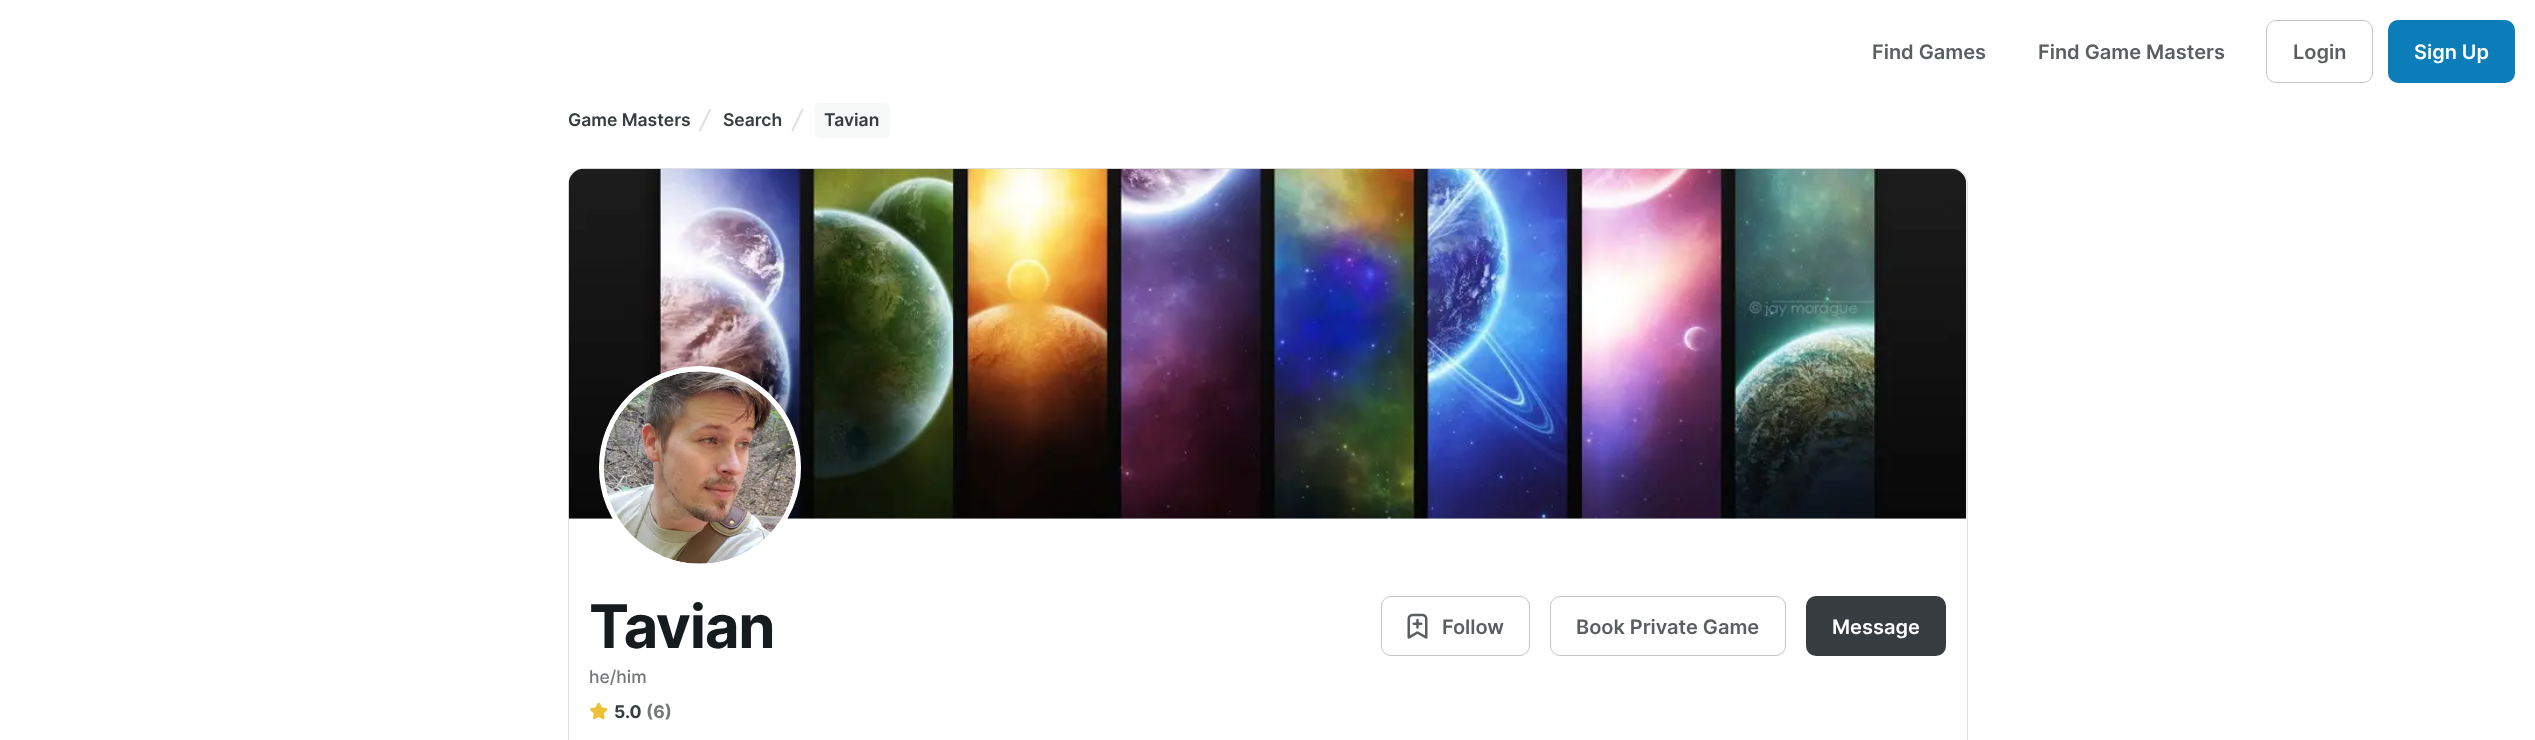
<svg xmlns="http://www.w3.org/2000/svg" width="2535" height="740">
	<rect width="100%" height="100%" fill="#FFFFFF" />
	<g font-family="Inter" font-size="20" font-weight="600" fill="#5A5E61">
		<text x="1872" y="59">Find Games</text>
		<text x="2038" y="59">Find Game Masters</text>
	</g>
	<rect x="2266.5" y="20.5" width="106" height="62" rx="9.5" fill="none" stroke="#C3C6C6" />
	<text x="2293" y="59" font-family="Inter" font-size="20" font-weight="600" fill="#5A5E61">Login</text>
	<rect x="2388" y="20" width="127" height="63" rx="10" fill="#0B7DB8" />
	<text x="2414" y="59" font-family="Inter" font-size="20" font-weight="600" fill="#FFFFFF">Sign Up</text>
	<text x="568" y="126" font-family="Inter" font-size="17.5" font-weight="600" fill="#363C3F">Game Masters</text>
	<path d="M700 130.5L710 109.5" fill="none" stroke="#E0E1E2" stroke-width="2.1" stroke-linecap="round" stroke-linejoin="round" />
	<text x="723" y="126" font-family="Inter" font-size="17.5" font-weight="600" fill="#363C3F">Search</text>
	<path d="M792.5 130.5L802.5 109.5" fill="none" stroke="#E0E1E2" stroke-width="2.1" stroke-linecap="round" stroke-linejoin="round" />
	<rect x="815" y="103" width="75" height="35" rx="5" fill="#F7F8F8" />
	<text x="824" y="126" font-family="Inter" font-size="17.5" font-weight="600" fill="#363C3F">Tavian</text>
	<rect x="568.5" y="168.5" width="1399" height="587" rx="14.5" fill="none" stroke="#E0E1E2" />
	<image x="568" y="168" width="1399" height="351" href="assets/img1.png" />
	<rect x="601.5" y="368.5" width="197" height="198" rx="98.5" fill="#FFFFFF" stroke="#FFFFFF" stroke-width="5" />
	<image x="604" y="371" width="192" height="193" href="assets/img2.png" />
	<text x="589" y="648" font-family="Inter" font-size="60" font-weight="700" letter-spacing="-1.25" fill="#161B1E">Tavian</text>
	<rect x="1381.5" y="596.5" width="148" height="59" rx="9.5" fill="none" stroke="#C3C6C6" />
	<image x="1407" y="613" width="21" height="26" href="assets/img3.png" />
	<text x="1442" y="634" font-family="Inter" font-size="20" font-weight="600" fill="#5A5E61">Follow</text>
	<rect x="1550.5" y="596.5" width="235" height="59" rx="9.5" fill="none" stroke="#C3C6C6" />
	<text x="1576" y="634" font-family="Inter" font-size="20" font-weight="600" fill="#5A5E61">Book Private Game</text>
	<rect x="1806" y="596" width="140" height="60" rx="10" fill="#363C3F" />
	<text x="1832" y="634" font-family="Inter" font-size="20" font-weight="600" fill="#FFFFFF">Message</text>
	<text x="589" y="683" font-family="Inter" font-size="17.5" font-weight="500" fill="#737779">he/him</text>
	<image x="590" y="702" width="18" height="18" href="assets/img4.png" />
	<text x="614" y="718" font-family="Inter" font-size="17.5" font-weight="700" fill="#363C3F">5.0</text>
	<text x="646" y="718" font-family="Inter" font-size="17.5" font-weight="700" fill="#737779">(6)</text>
</svg>
